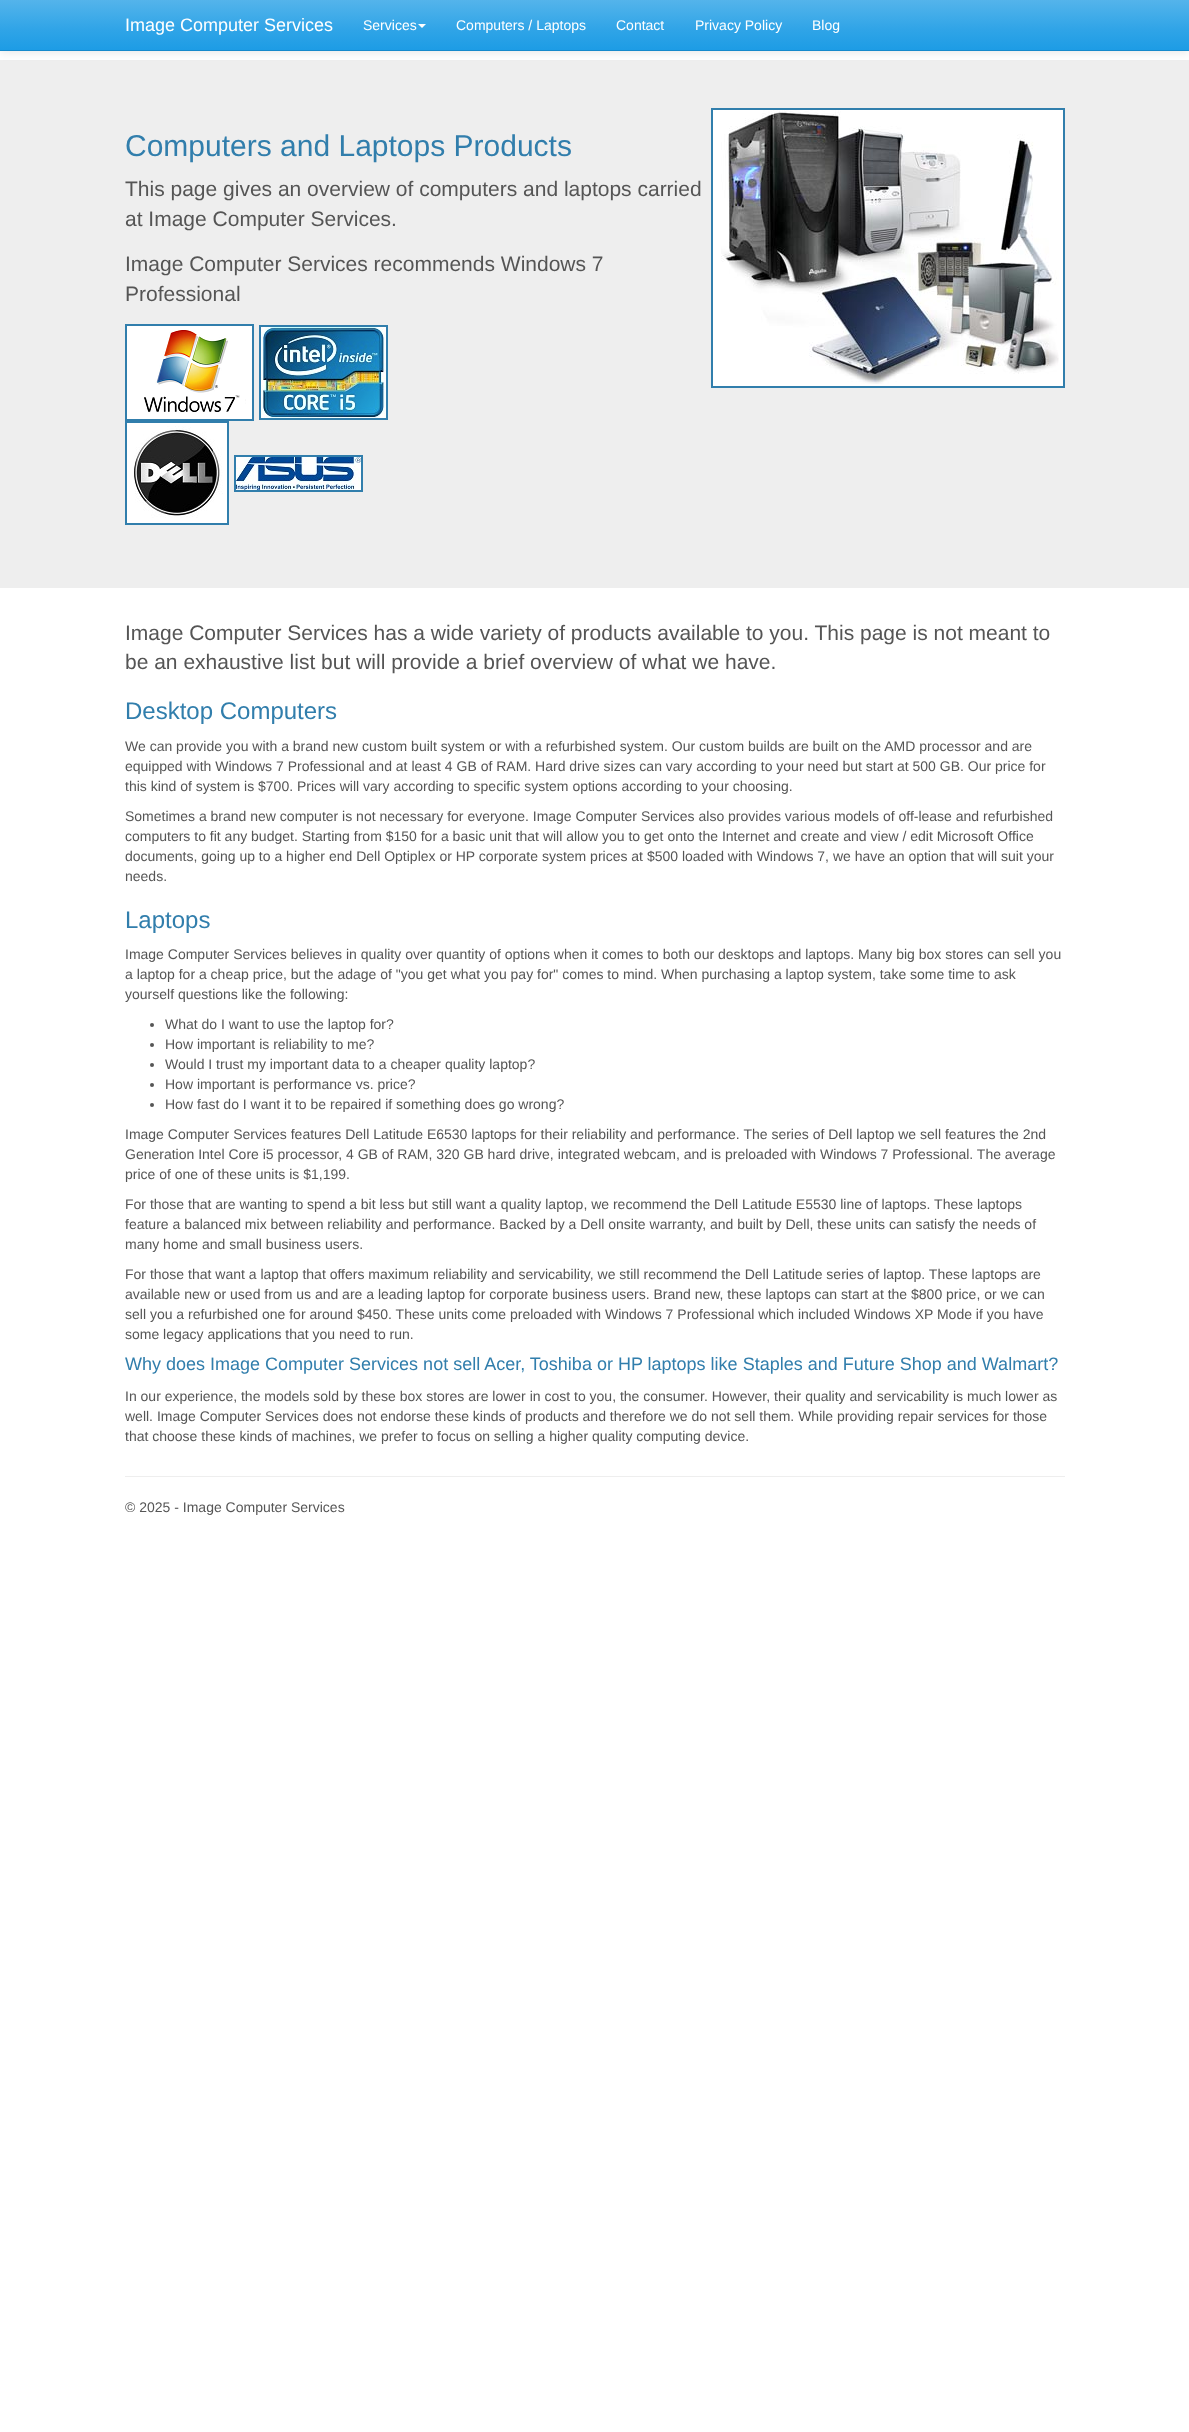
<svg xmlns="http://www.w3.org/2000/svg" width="1189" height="2432">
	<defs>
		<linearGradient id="g1" gradientUnits="userSpaceOnUse" x1="595" y1="0" x2="595" y2="50"><stop offset="0" stop-color="#54B4EB" /><stop offset="0.6" stop-color="#2FA4E7" /><stop offset="1" stop-color="#1D9CE5" /></linearGradient>
	</defs>
	<rect width="100%" height="100%" fill="#FFFFFF" />
	<rect x="0" y="60" width="1189" height="528" fill="#EEEEEE" />
	<rect x="0" y="1" width="1189" height="51" fill="#000000" fill-opacity="0.1" filter="blur(5px)" />
	<rect x="0" y="0" width="1189" height="50" fill="url(#g1)" />
	<rect x="0" y="50" width="1189" height="1" fill="#178ACC" />
	<text x="125" y="31" font-family="Liberation Sans" font-size="18" fill="#FFFFFF">Image Computer Services</text>
	<text x="363" y="30" font-family="Liberation Sans" font-size="14" fill="#FFFFFF">Services</text>
	<path d="M418 24H426L422 28Z" fill="#FFFFFF" />
	<g font-family="Liberation Sans" font-size="14" fill="#FFFFFF">
		<text x="456" y="30">Computers / Laptops</text>
		<text x="616" y="30">Contact</text>
		<text x="695" y="30">Privacy Policy</text>
		<text x="812" y="30">Blog</text>
	</g>
	<text x="125" y="156" font-family="Liberation Sans" font-size="30" fill="#317EAC">Computers and Laptops Products</text>
	<rect x="712" y="109" width="352" height="278" fill="#FFFFFF" stroke="#317EAC" stroke-width="2" />
	<image x="721" y="110" width="338" height="274" href="assets/img1.png" />
	<g font-family="Liberation Sans" font-size="21" fill="#555555">
		<text x="125" y="196">This page gives an overview of computers and laptops carried</text>
		<text x="125" y="226">at Image Computer Services.</text>
		<text x="125" y="271">Image Computer Services recommends Windows 7</text>
		<text x="125" y="301">Professional</text>
	</g>
	<rect x="126" y="325" width="127" height="95" fill="#FFFFFF" stroke="#317EAC" stroke-width="2" />
	<rect x="260" y="326" width="127" height="93" fill="none" stroke="#317EAC" stroke-width="2" />
	<image x="144" y="330" width="102" height="82" href="assets/img2.png" />
	<image x="261" y="327" width="125" height="91" href="assets/img3.png" />
	<rect x="126" y="422" width="102" height="102" fill="#FFFFFF" stroke="#317EAC" stroke-width="2" />
	<image x="134" y="426" width="89" height="92" href="assets/img4.png" />
	<rect x="235" y="456" width="127" height="35" fill="none" stroke="#317EAC" stroke-width="2" />
	<image x="236" y="457" width="125" height="33" href="assets/img5.png" />
	<g font-family="Liberation Sans" font-size="21" fill="#555555">
		<text x="125" y="640">Image Computer Services has a wide variety of products available to you. This page is not meant to</text>
		<text x="125" y="669">be an exhaustive list but will provide a brief overview of what we have.</text>
	</g>
	<text x="125" y="719" font-family="Liberation Sans" font-size="24" fill="#317EAC">Desktop Computers</text>
	<g font-family="Liberation Sans" font-size="14" fill="#555555">
		<text x="125" y="751">We can provide you with a brand new custom built system or with a refurbished system. Our custom builds are built on the AMD processor and are</text>
		<text x="125" y="771">equipped with Windows 7 Professional and at least 4 GB of RAM. Hard drive sizes can vary according to your need but start at 500 GB. Our price for</text>
		<text x="125" y="791">this kind of system is $700. Prices will vary according to specific system options according to your choosing.</text>
		<text x="125" y="821">Sometimes a brand new computer is not necessary for everyone. Image Computer Services also provides various models of off-lease and refurbished</text>
		<text x="125" y="841">computers to fit any budget. Starting from $150 for a basic unit that will allow you to get onto the Internet and create and view / edit Microsoft Office</text>
		<text x="125" y="861">documents, going up to a higher end Dell Optiplex or HP corporate system prices at $500 loaded with Windows 7, we have an option that will suit your</text>
		<text x="125" y="881">needs.</text>
	</g>
	<text x="125" y="928" font-family="Liberation Sans" font-size="24" fill="#317EAC">Laptops</text>
	<g font-family="Liberation Sans" font-size="14" fill="#555555">
		<text x="125" y="959">Image Computer Services believes in quality over quantity of options when it comes to both our desktops and laptops. Many big box stores can sell you</text>
		<text x="125" y="979">a laptop for a cheap price, but the adage of "you get what you pay for" comes to mind. When purchasing a laptop system, take some time to ask</text>
		<text x="125" y="999">yourself questions like the following:</text>
	</g>
	<circle cx="152" cy="1025" r="2" fill="#555555" />
	<text x="165" y="1029" font-family="Liberation Sans" font-size="14" fill="#555555">What do I want to use the laptop for?</text>
	<circle cx="152" cy="1045" r="2" fill="#555555" />
	<text x="165" y="1049" font-family="Liberation Sans" font-size="14" fill="#555555">How important is reliability to me?</text>
	<circle cx="152" cy="1065" r="2" fill="#555555" />
	<text x="165" y="1069" font-family="Liberation Sans" font-size="14" fill="#555555">Would I trust my important data to a cheaper quality laptop?</text>
	<circle cx="152" cy="1085" r="2" fill="#555555" />
	<text x="165" y="1089" font-family="Liberation Sans" font-size="14" fill="#555555">How important is performance vs. price?</text>
	<circle cx="152" cy="1105" r="2" fill="#555555" />
	<g font-family="Liberation Sans" font-size="14" fill="#555555">
		<text x="165" y="1109">How fast do I want it to be repaired if something does go wrong?</text>
		<text x="125" y="1139">Image Computer Services features Dell Latitude E6530 laptops for their reliability and performance. The series of Dell laptop we sell features the 2nd</text>
		<text x="125" y="1159">Generation Intel Core i5 processor, 4 GB of RAM, 320 GB hard drive, integrated webcam, and is preloaded with Windows 7 Professional. The average</text>
		<text x="125" y="1179">price of one of these units is $1,199.</text>
		<text x="125" y="1209">For those that are wanting to spend a bit less but still want a quality laptop, we recommend the Dell Latitude E5530 line of laptops. These laptops</text>
		<text x="125" y="1229">feature a balanced mix between reliability and performance. Backed by a Dell onsite warranty, and built by Dell, these units can satisfy the needs of</text>
		<text x="125" y="1249">many home and small business users.</text>
		<text x="125" y="1279">For those that want a laptop that offers maximum reliability and servicability, we still recommend the Dell Latitude series of laptop. These laptops are</text>
		<text x="125" y="1299">available new or used from us and are a leading laptop for corporate business users. Brand new, these laptops can start at the $800 price, or we can</text>
		<text x="125" y="1319">sell you a refurbished one for around $450. These units come preloaded with Windows 7 Professional which included Windows XP Mode if you have</text>
		<text x="125" y="1339">some legacy applications that you need to run.</text>
	</g>
	<text x="125" y="1370" font-family="Liberation Sans" font-size="18" fill="#317EAC">Why does Image Computer Services not sell Acer, Toshiba or HP laptops like Staples and Future Shop and Walmart?</text>
	<g font-family="Liberation Sans" font-size="14" fill="#555555">
		<text x="125" y="1401">In our experience, the models sold by these box stores are lower in cost to you, the consumer. However, their quality and servicability is much lower as</text>
		<text x="125" y="1421">well. Image Computer Services does not endorse these kinds of products and therefore we do not sell them. While providing repair services for those</text>
		<text x="125" y="1441">that choose these kinds of machines, we prefer to focus on selling a higher quality computing device.</text>
	</g>
	<rect x="125" y="1476" width="940" height="1" fill="#EEEEEE" />
	<text x="125" y="1512" font-family="Liberation Sans" font-size="14" fill="#555555">© 2025 - Image Computer Services</text>
</svg>
